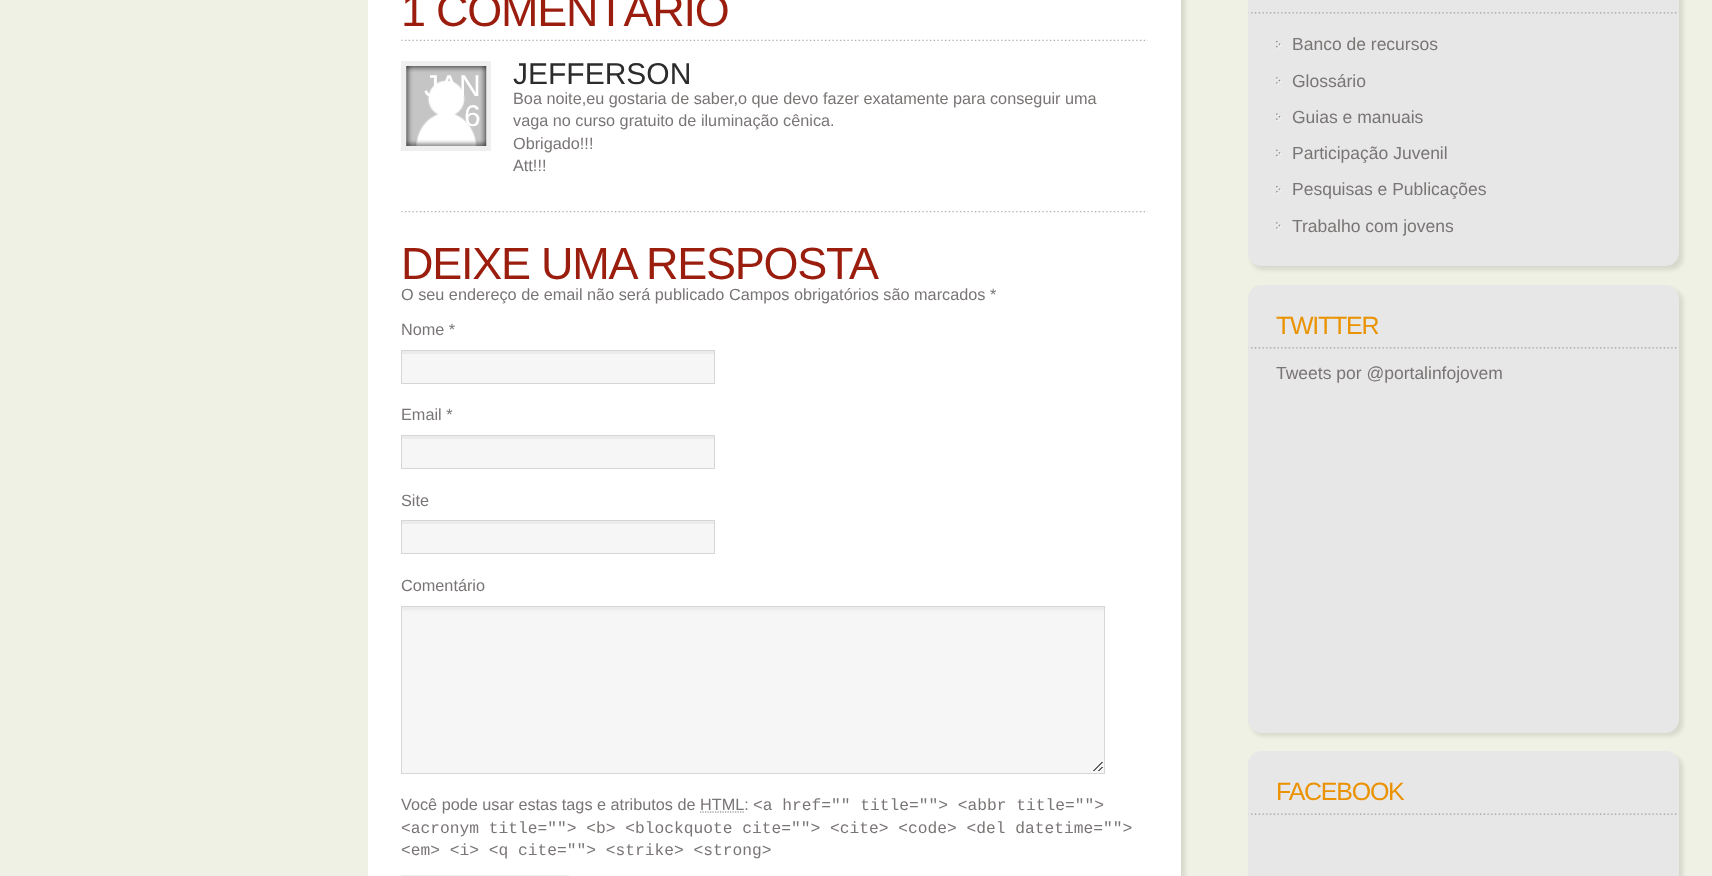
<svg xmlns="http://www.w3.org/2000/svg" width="1712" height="876">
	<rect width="100%" height="100%" fill="#EFF1E4" />
	<rect x="371" y="-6" width="814" height="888" fill="#000000" fill-opacity="0.1" filter="blur(2px)" />
	<rect x="368" y="0" width="813" height="876" fill="#FFFFFF" />
	<text x="401" y="26" font-family="Liberation Sans" font-size="45" letter-spacing="-1.25" fill="#9A1D0D">1 COMENTÁRIO</text>
	<image x="401" y="39" width="747" height="2" href="assets/img1.png" />
	<image x="401" y="211" width="747" height="2" href="assets/img2.png" />
	<rect x="401" y="61" width="90" height="90" fill="#EFEFEF" />
	<image x="406" y="66" width="81" height="80" href="assets/img3.png" />
	<image x="406" y="66" width="81" height="80" href="assets/img4.png" />
	<g font-family="Liberation Sans" font-size="30" fill="#FFFFFF">
		<text x="424" y="96">JAN</text>
		<text x="464" y="126">6</text>
	</g>
	<text x="513" y="84" font-family="Liberation Sans" font-size="30" fill="#2C2C2C">JEFFERSON</text>
	<g font-family="Liberation Sans" font-size="16.25" fill="#7A7575">
		<text x="513" y="104">Boa noite,eu gostaria de saber,o que devo fazer exatamente para conseguir uma</text>
		<text x="513" y="126">vaga no curso gratuito de iluminação cênica.</text>
		<text x="513" y="149">Obrigado!!!</text>
		<text x="513" y="171">Att!!!</text>
	</g>
	<text x="401" y="279" font-family="Liberation Sans" font-size="45" letter-spacing="-1.25" fill="#9A1D0D">DEIXE UMA RESPOSTA</text>
	<g font-family="Liberation Sans" font-size="16.25" fill="#7A7575">
		<text x="401" y="300">O seu endereço de email não será publicado Campos obrigatórios são marcados *</text>
		<text x="401" y="335">Nome *</text>
	</g>
	<rect x="402" y="354" width="312" height="29" fill="#F6F6F6" />
	<rect x="401" y="351" width="314" height="3" fill="#EBEBEB" />
	<rect x="401.5" y="350.5" width="313" height="33" fill="none" stroke="#D6D6D6" />
	<text x="401" y="420" font-family="Liberation Sans" font-size="16.25" fill="#7A7575">Email *</text>
	<rect x="402" y="439" width="312" height="29" fill="#F6F6F6" />
	<rect x="401" y="436" width="314" height="3" fill="#EBEBEB" />
	<rect x="401.5" y="435.5" width="313" height="33" fill="none" stroke="#D6D6D6" />
	<text x="401" y="506" font-family="Liberation Sans" font-size="16.25" fill="#7A7575">Site</text>
	<rect x="402" y="524" width="312" height="29" fill="#F6F6F6" />
	<rect x="401" y="521" width="314" height="3" fill="#EBEBEB" />
	<rect x="401.5" y="520.5" width="313" height="33" fill="none" stroke="#D6D6D6" />
	<text x="401" y="591" font-family="Liberation Sans" font-size="16.25" fill="#7A7575">Comentário</text>
	<rect x="402" y="607" width="702" height="166" fill="#F6F6F6" />
	<image x="402" y="607" width="702" height="164" href="assets/img5.png" />
	<rect x="401.5" y="606.5" width="703" height="167" fill="none" stroke="#D6D6D6" />
	<text x="401" y="810" font-family="Liberation Sans" font-size="16.25" fill="#7A7575">Você pode usar estas tags e atributos de HTML:</text>
	<text x="753" y="810" font-family="Liberation Mono" font-size="16.25" fill="#7A7575">&lt;a href="" title=""&gt; &lt;abbr title=""&gt;</text>
	<path d="M700 812H744" fill="none" stroke="#7A7575" stroke-width="1.2" stroke-dasharray="1.25 1.25" />
	<g font-family="Liberation Mono" font-size="16.25" fill="#7A7575">
		<text x="401" y="833">&lt;acronym title=""&gt; &lt;b&gt; &lt;blockquote cite=""&gt; &lt;cite&gt; &lt;code&gt; &lt;del datetime=""&gt;</text>
		<text x="401" y="855">&lt;em&gt; &lt;i&gt; &lt;q cite=""&gt; &lt;strike&gt; &lt;strong&gt;</text>
	</g>
	<rect x="401" y="875" width="168" height="1" fill="#EFEFEF" />
	<rect x="1251" y="-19" width="432" height="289" rx="13" fill="#000000" fill-opacity="0.1" filter="blur(2px)" />
	<rect x="1248.5" y="-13.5" width="430" height="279" rx="12.5" fill="#E7E7E7" stroke="#E7E7E7" />
	<image x="1248" y="12" width="429" height="2" href="assets/img6.png" />
	<image x="1276" y="41" width="6" height="8" href="assets/img7.png" />
	<text x="1292" y="50" font-family="Liberation Sans" font-size="17.5" fill="#7A7575">Banco de recursos</text>
	<image x="1276" y="77" width="6" height="8" href="assets/img8.png" />
	<text x="1292" y="87" font-family="Liberation Sans" font-size="17.5" fill="#7A7575">Glossário</text>
	<image x="1276" y="113" width="6" height="8" href="assets/img9.png" />
	<text x="1292" y="123" font-family="Liberation Sans" font-size="17.5" fill="#7A7575">Guias e manuais</text>
	<image x="1276" y="149" width="6" height="9" href="assets/img10.png" />
	<text x="1292" y="159" font-family="Liberation Sans" font-size="17.5" fill="#7A7575">Participação Juvenil</text>
	<image x="1276" y="186" width="6" height="8" href="assets/img7.png" />
	<text x="1292" y="195" font-family="Liberation Sans" font-size="17.5" fill="#7A7575">Pesquisas e Publicações</text>
	<image x="1276" y="222" width="6" height="8" href="assets/img8.png" />
	<text x="1292" y="232" font-family="Liberation Sans" font-size="17.5" fill="#7A7575">Trabalho com jovens</text>
	<rect x="1251" y="289" width="432" height="447" rx="13" fill="#000000" fill-opacity="0.1" filter="blur(2px)" />
	<rect x="1248.5" y="285.5" width="430" height="447" rx="12.5" fill="#E7E7E7" stroke="#E7E7E7" />
	<image x="1248" y="347" width="429" height="2" href="assets/img6.png" />
	<text x="1276" y="334" font-family="Liberation Sans" font-size="25" letter-spacing="-1.25" fill="#EA9200">TWITTER</text>
	<text x="1276" y="379" font-family="Liberation Sans" font-size="17.5" fill="#7A7575">Tweets por @portalinfojovem</text>
	<rect x="1251" y="755" width="432" height="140" rx="13" fill="#000000" fill-opacity="0.1" filter="blur(2px)" />
	<rect x="1248.5" y="751.5" width="430" height="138" rx="12.5" fill="#E7E7E7" stroke="#E7E7E7" />
	<image x="1248" y="813" width="429" height="2" href="assets/img11.png" />
	<text x="1276" y="800" font-family="Liberation Sans" font-size="25" letter-spacing="-1.25" fill="#EA9200">FACEBOOK</text>
</svg>
